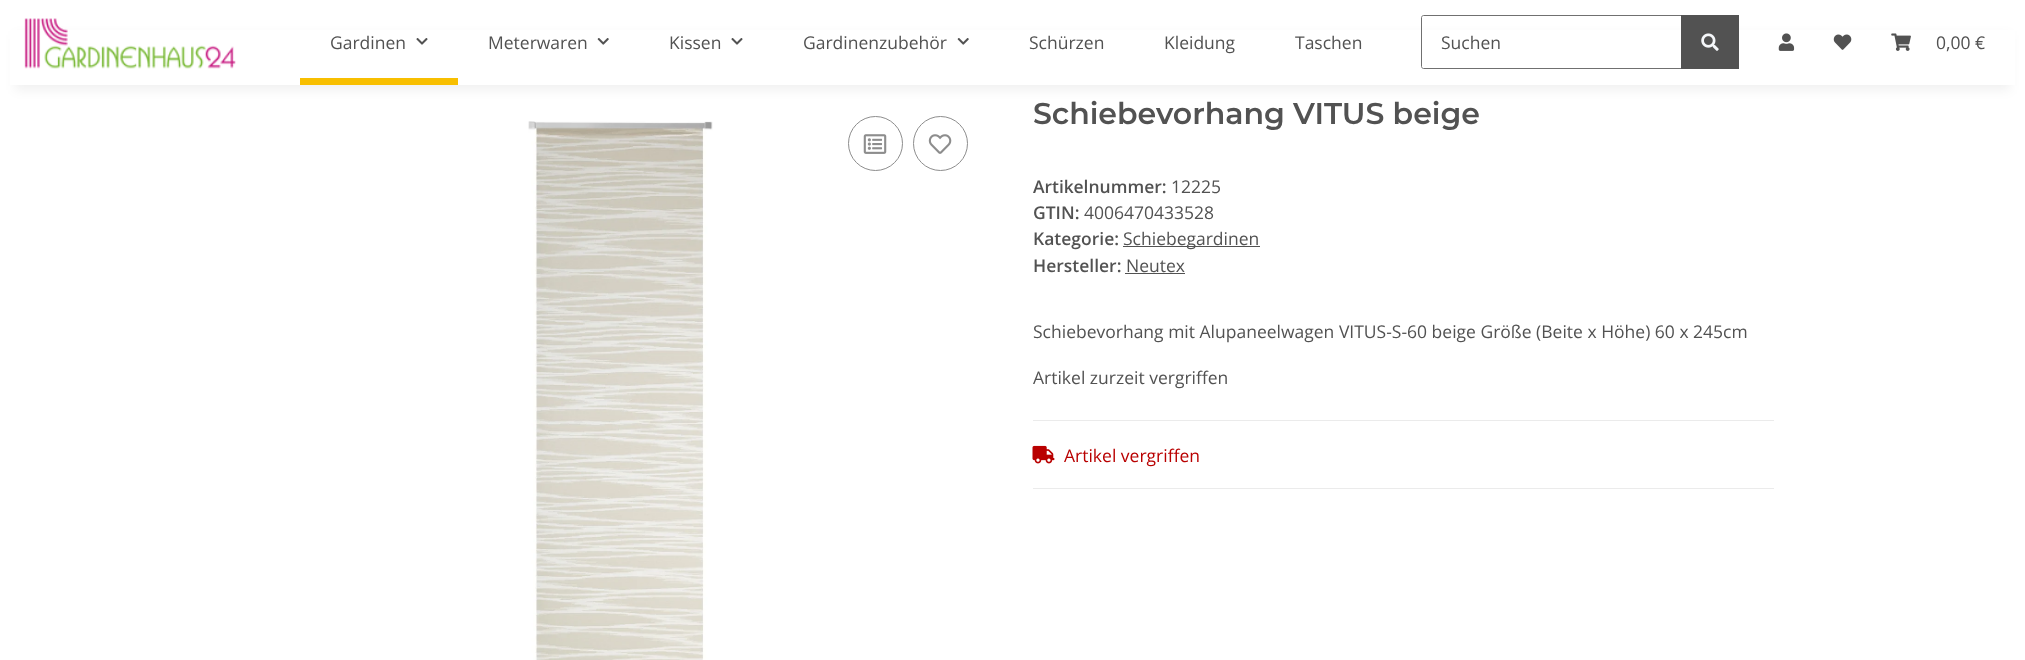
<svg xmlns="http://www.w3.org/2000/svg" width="2025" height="660">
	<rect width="100%" height="100%" fill="#FFFFFF" />
	<rect x="15" y="35" width="1995" height="55" fill="#000000" fill-opacity="0.06" filter="blur(5.5px)" />
	<rect x="10" y="30" width="2005" height="55" fill="#FFFFFF" />
	<image x="24" y="18" width="212" height="51" href="assets/img1.png" />
	<text x="330" y="49" font-family="Open Sans" font-size="17.5" fill="#525252">Gardinen</text>
	<image x="416" y="38" width="12" height="7" href="assets/img2.png" />
	<rect x="300" y="78" width="158" height="7" fill="#F8BF00" />
	<text x="488" y="49" font-family="Open Sans" font-size="17.5" fill="#525252">Meterwaren</text>
	<image x="597" y="38" width="12" height="7" href="assets/img3.png" />
	<text x="669" y="49" font-family="Open Sans" font-size="17.5" fill="#525252">Kissen</text>
	<image x="731" y="38" width="12" height="7" href="assets/img2.png" />
	<text x="803" y="49" font-family="Open Sans" font-size="17.5" fill="#525252">Gardinenzubehör</text>
	<image x="957" y="38" width="12" height="7" href="assets/img3.png" />
	<g font-family="Open Sans" font-size="17.5" fill="#525252">
		<text x="1029" y="49">Schürzen</text>
		<text x="1164" y="49">Kleidung</text>
		<text x="1295" y="49">Taschen</text>
	</g>
	<path d="M1423.5 15.5H1682.5V68.5H1423.5C1422.5 68.5 1421.5 67.5 1421.5 66.5V17.5C1421.5 16.5 1422.5 15.5 1423.5 15.5Z" fill="none" stroke="#707070" />
	<text x="1441" y="49" font-family="Open Sans" font-size="17.5" fill="#525252">Suchen</text>
	<rect x="1681" y="15" width="58" height="54" fill="#525252" />
	<image x="1701" y="33" width="18" height="18" href="assets/img4.png" />
	<image x="1778" y="33" width="17" height="18" href="assets/img5.png" />
	<image x="1833" y="34" width="19" height="16" href="assets/img6.png" />
	<image x="1891" y="33" width="20" height="18" href="assets/img7.png" />
	<text x="1936" y="49" font-family="Open Sans" font-size="17.5" fill="#525252">0,00 €</text>
	<image x="528" y="121" width="185" height="539" href="assets/img8.png" />
	<circle cx="875.5" cy="143.5" r="27" fill="none" stroke="#8D8D8D" />
	<image x="863" y="134" width="24" height="20" href="assets/img9.png" />
	<circle cx="940.5" cy="143.5" r="27" fill="none" stroke="#8D8D8D" />
	<image x="928" y="134" width="24" height="20" href="assets/img10.png" />
	<text x="1033" y="124" font-family="Montserrat" font-size="30" font-weight="600" fill="#525252">Schiebevorhang VITUS beige</text>
	<text x="1033" y="193" font-family="Open Sans" font-size="17.5" font-weight="600" fill="#525252">Artikelnummer:</text>
	<text x="1171" y="193" font-family="Open Sans" font-size="17.5" fill="#525252">12225</text>
	<text x="1033" y="219" font-family="Open Sans" font-size="17.5" font-weight="600" fill="#525252">GTIN:</text>
	<text x="1084" y="219" font-family="Open Sans" font-size="17.5" fill="#525252">4006470433528</text>
	<text x="1033" y="245" font-family="Open Sans" font-size="17.5" font-weight="600" fill="#525252">Kategorie:</text>
	<rect x="1123" y="246" width="137" height="1" fill="#525252" />
	<text x="1123" y="245" font-family="Open Sans" font-size="17.5" fill="#525252">Schiebegardinen</text>
	<text x="1033" y="272" font-family="Open Sans" font-size="17.5" font-weight="600" fill="#525252">Hersteller:</text>
	<text x="1126" y="272" font-family="Open Sans" font-size="17.5" fill="#525252">Neutex</text>
	<rect x="1125" y="273" width="60" height="1" fill="#525252" />
	<g font-family="Open Sans" font-size="17.5" fill="#525252">
		<text x="1033" y="338">Schiebevorhang mit Alupaneelwagen VITUS-S-60 beige Größe (Beite x Höhe) 60 x 245cm</text>
		<text x="1033" y="384">Artikel zurzeit vergriffen</text>
	</g>
	<rect x="1033" y="420" width="741" height="1" fill="#EBEBEB" />
	<rect x="1033" y="488" width="741" height="1" fill="#EBEBEB" />
	<image x="1032" y="445" width="23" height="19" href="assets/img11.png" />
	<text x="1064" y="462" font-family="Open Sans" font-size="17.5" fill="#B90000">Artikel vergriffen</text>
</svg>
